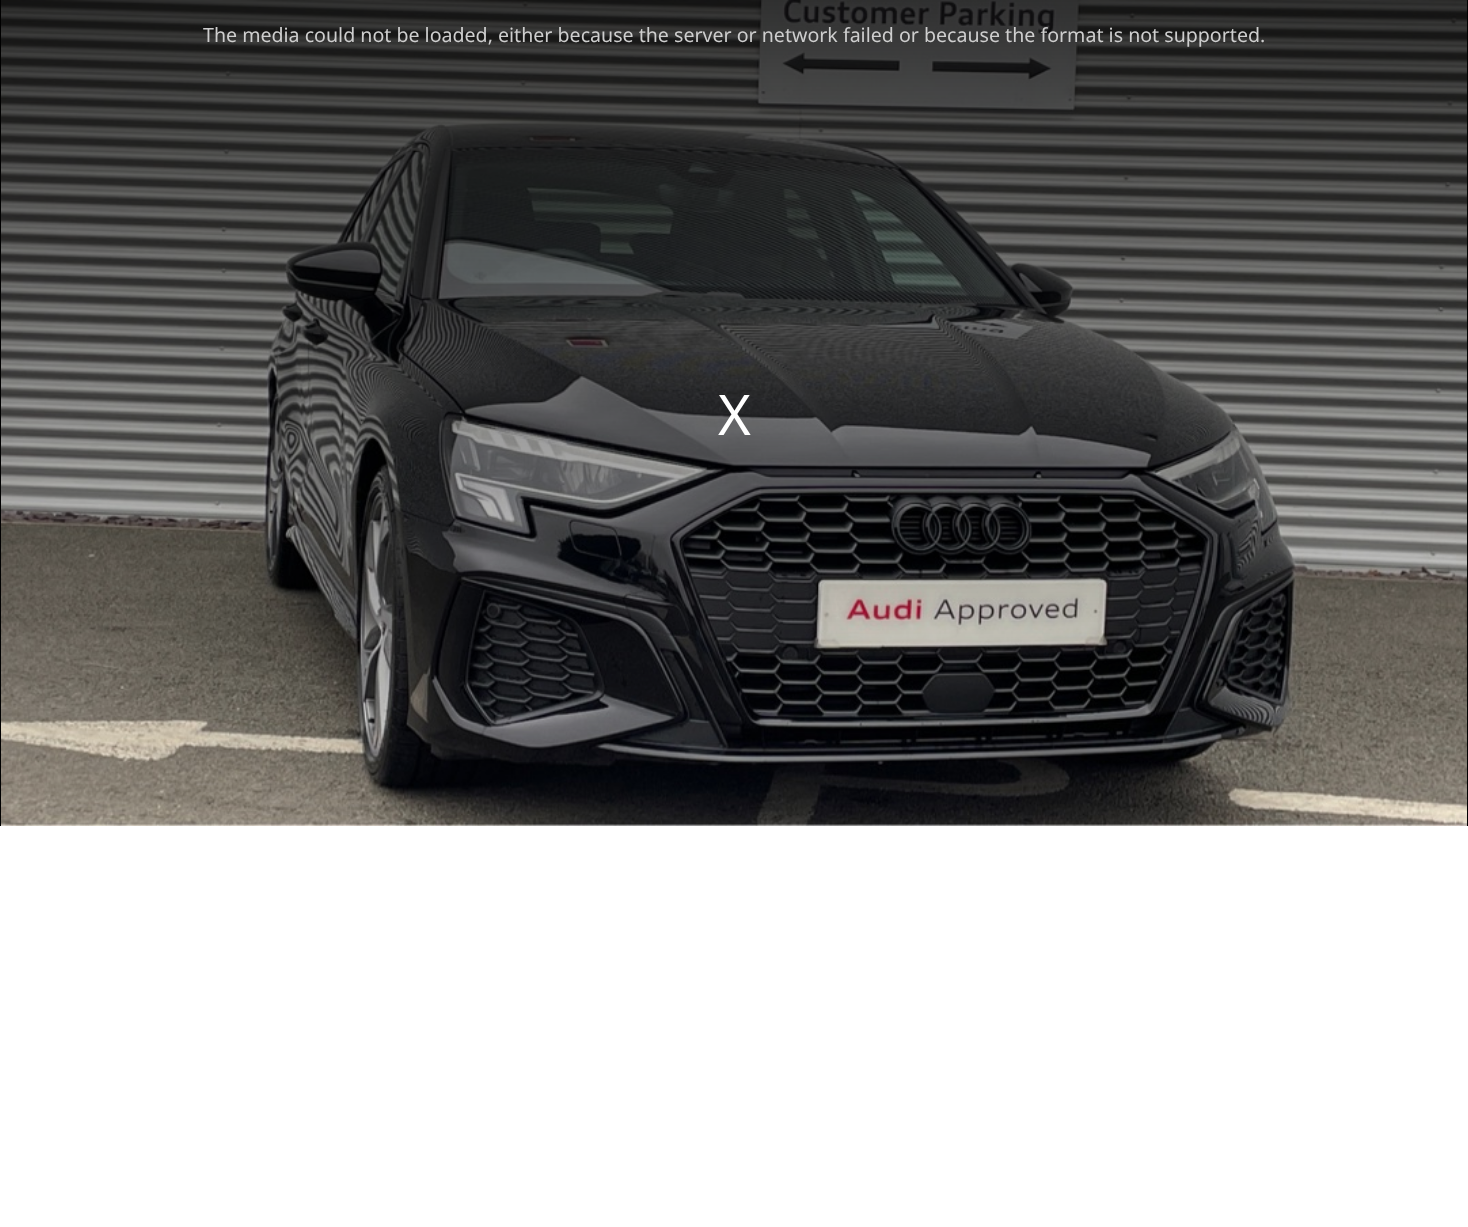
<svg xmlns="http://www.w3.org/2000/svg" width="1468" height="1227">
	<rect width="100%" height="100%" fill="#FFFFFF" />
	<rect x="0" y="0" width="1468" height="826" fill="#000000" />
	<image x="1" y="0" width="1466" height="826" href="assets/img1.png" />
	<text x="203" y="42" font-family="Noto Sans" font-size="19.6" fill="#CECECE">The media could not be loaded, either because the server or network failed or because the format is not supported.</text>
	<text x="718" y="435" font-family="Noto Sans" font-size="56" fill="#FFFFFF">X</text>
</svg>
